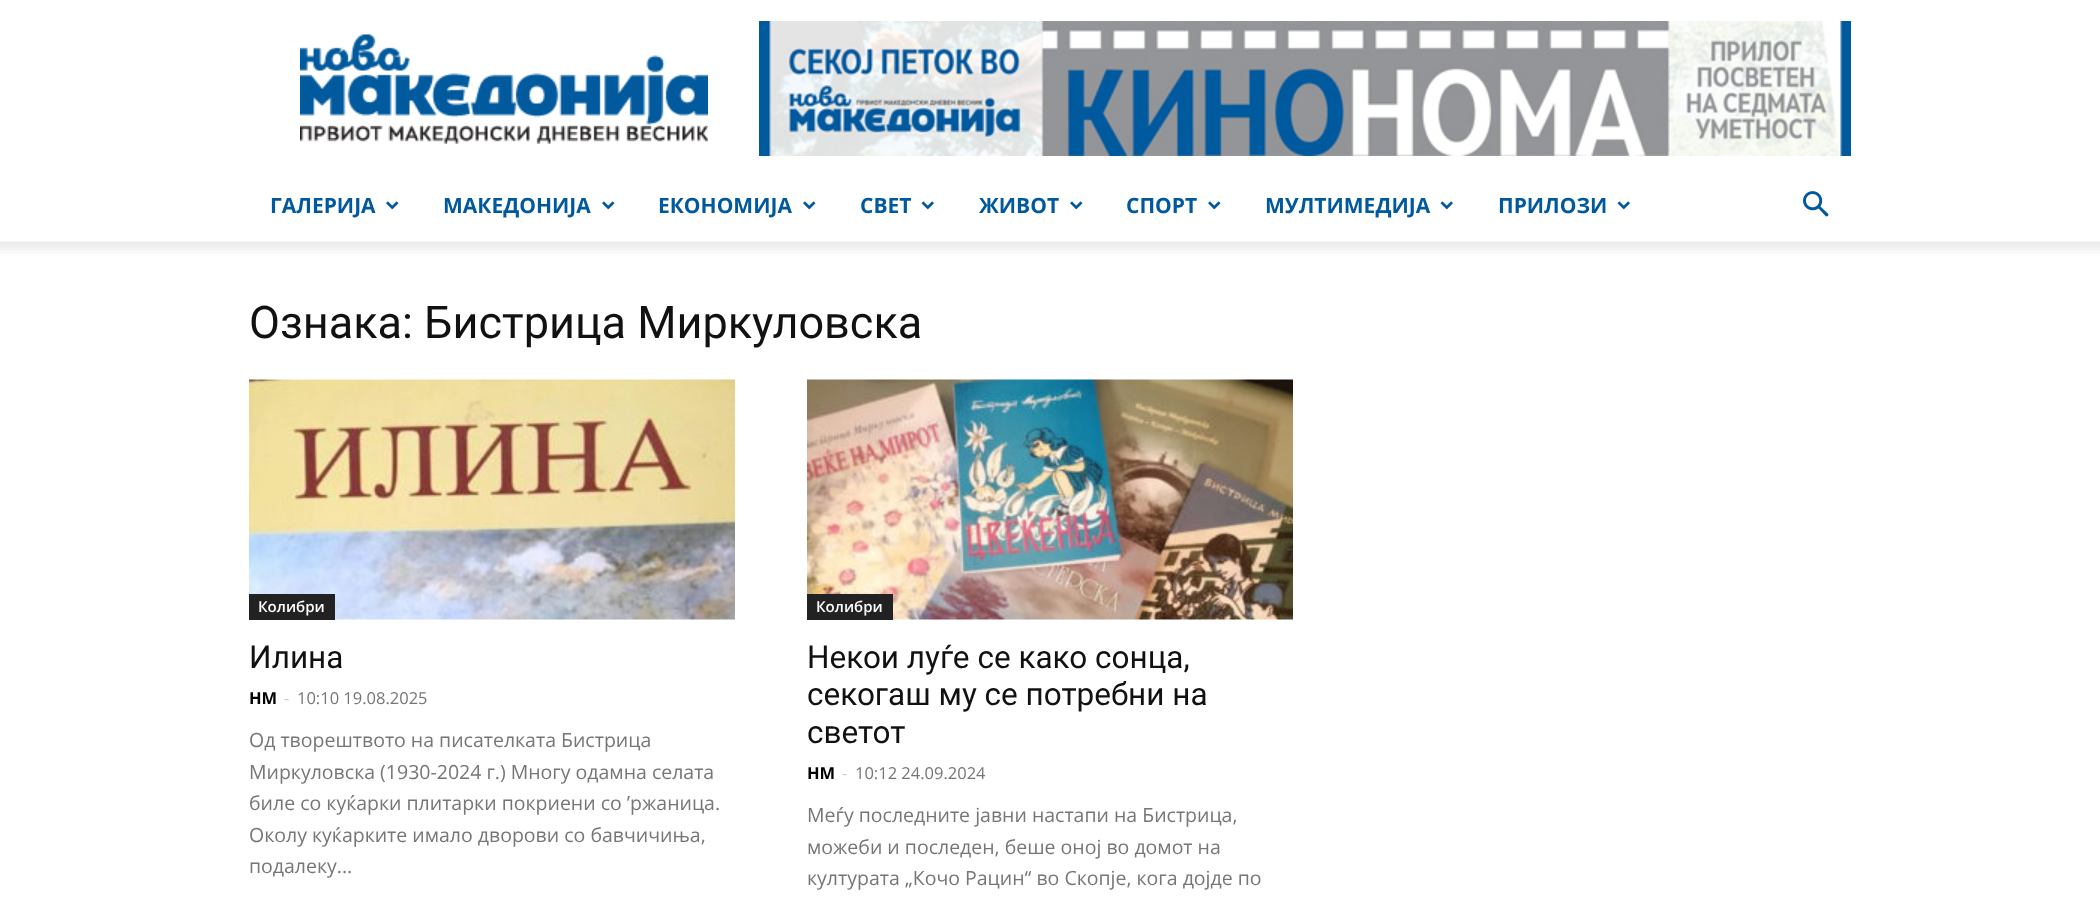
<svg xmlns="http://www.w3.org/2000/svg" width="2100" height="903">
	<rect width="100%" height="100%" fill="#FFFFFF" />
	<image x="300" y="34" width="408" height="110" href="assets/img1.png" />
	<image x="759" y="21" width="1092" height="135" href="assets/img2.png" />
	<text x="270" y="213" font-family="Open Sans" font-size="21" font-weight="700" fill="#00589D">ГАЛЕРИЈА</text>
	<image x="386" y="201" width="13" height="9" href="assets/img3.png" />
	<text x="443" y="213" font-family="Open Sans" font-size="21" font-weight="700" fill="#00589D">МАКЕДОНИЈА</text>
	<image x="602" y="201" width="13" height="9" href="assets/img3.png" />
	<text x="658" y="213" font-family="Open Sans" font-size="21" font-weight="700" fill="#00589D">ЕКОНОМИЈА</text>
	<image x="803" y="201" width="13" height="9" href="assets/img3.png" />
	<text x="860" y="213" font-family="Open Sans" font-size="21" font-weight="700" fill="#00589D">СВЕТ</text>
	<image x="921" y="201" width="13" height="9" href="assets/img4.png" />
	<text x="979" y="213" font-family="Open Sans" font-size="21" font-weight="700" fill="#00589D">ЖИВОТ</text>
	<image x="1070" y="201" width="13" height="9" href="assets/img3.png" />
	<text x="1126" y="213" font-family="Open Sans" font-size="21" font-weight="700" fill="#00589D">СПОРТ</text>
	<image x="1208" y="201" width="13" height="9" href="assets/img3.png" />
	<text x="1265" y="213" font-family="Open Sans" font-size="21" font-weight="700" fill="#00589D">МУЛТИМЕДИЈА</text>
	<image x="1440" y="201" width="13" height="9" href="assets/img4.png" />
	<text x="1498" y="213" font-family="Open Sans" font-size="21" font-weight="700" fill="#00589D">ПРИЛОЗИ</text>
	<image x="1617" y="201" width="13" height="9" href="assets/img4.png" />
	<image x="1803" y="191" width="26" height="26" href="assets/img5.png" />
	<image x="0" y="241" width="2100" height="13" href="assets/img6.png" />
	<text x="249" y="338" font-family="Roboto" font-size="45" fill="#111111">Ознака: Бистрица Миркуловска</text>
	<image x="249" y="379" width="486" height="241" href="assets/img7.png" />
	<rect x="249" y="594" width="86" height="26" fill="#222222" />
	<text x="258" y="612" font-family="Open Sans" font-size="15" font-weight="600" fill="#FFFFFF">Колибри</text>
	<text x="249" y="668" font-family="Roboto" font-size="31.5" fill="#111111">Илина</text>
	<text x="249" y="704" font-family="Open Sans" font-size="16.5" font-weight="700" fill="#000000">НМ</text>
	<text x="284" y="704" font-family="Open Sans" font-size="16.5" fill="#CCCCCC">-</text>
	<text x="297" y="704" font-family="Open Sans" font-size="16.5" fill="#767676">10:10 19.08.2025</text>
	<g font-family="Open Sans" font-size="19.5" fill="#767676">
		<text x="249" y="747">Од творештвото на писателката Бистрица</text>
		<text x="249" y="779">Миркуловска (1930-2024 г.) Многу одамна селата</text>
		<text x="249" y="810">биле со куќарки плитарки покриени со ’ржаница.</text>
		<text x="249" y="842">Околу куќарките имало дворови со бавчичиња,</text>
		<text x="249" y="873">подалеку...</text>
	</g>
	<image x="807" y="379" width="486" height="241" href="assets/img8.png" />
	<rect x="807" y="594" width="86" height="26" fill="#222222" />
	<text x="816" y="612" font-family="Open Sans" font-size="15" font-weight="600" fill="#FFFFFF">Колибри</text>
	<g font-family="Roboto" font-size="31.5" fill="#111111">
		<text x="807" y="668">Некои луѓе се како сонца,</text>
		<text x="807" y="705">секогаш му се потребни на</text>
		<text x="807" y="743">светот</text>
	</g>
	<text x="807" y="779" font-family="Open Sans" font-size="16.5" font-weight="700" fill="#000000">НМ</text>
	<text x="842" y="779" font-family="Open Sans" font-size="16.5" fill="#CCCCCC">-</text>
	<text x="855" y="779" font-family="Open Sans" font-size="16.5" fill="#767676">10:12 24.09.2024</text>
	<g font-family="Open Sans" font-size="19.5" fill="#767676">
		<text x="807" y="822">Меѓу последните јавни настапи на Бистрица,</text>
		<text x="807" y="854">можеби и последен, беше оној во домот на</text>
		<text x="807" y="885">културата „Кочо Рацин“ во Скопје, кога дојде по</text>
	</g>
</svg>
